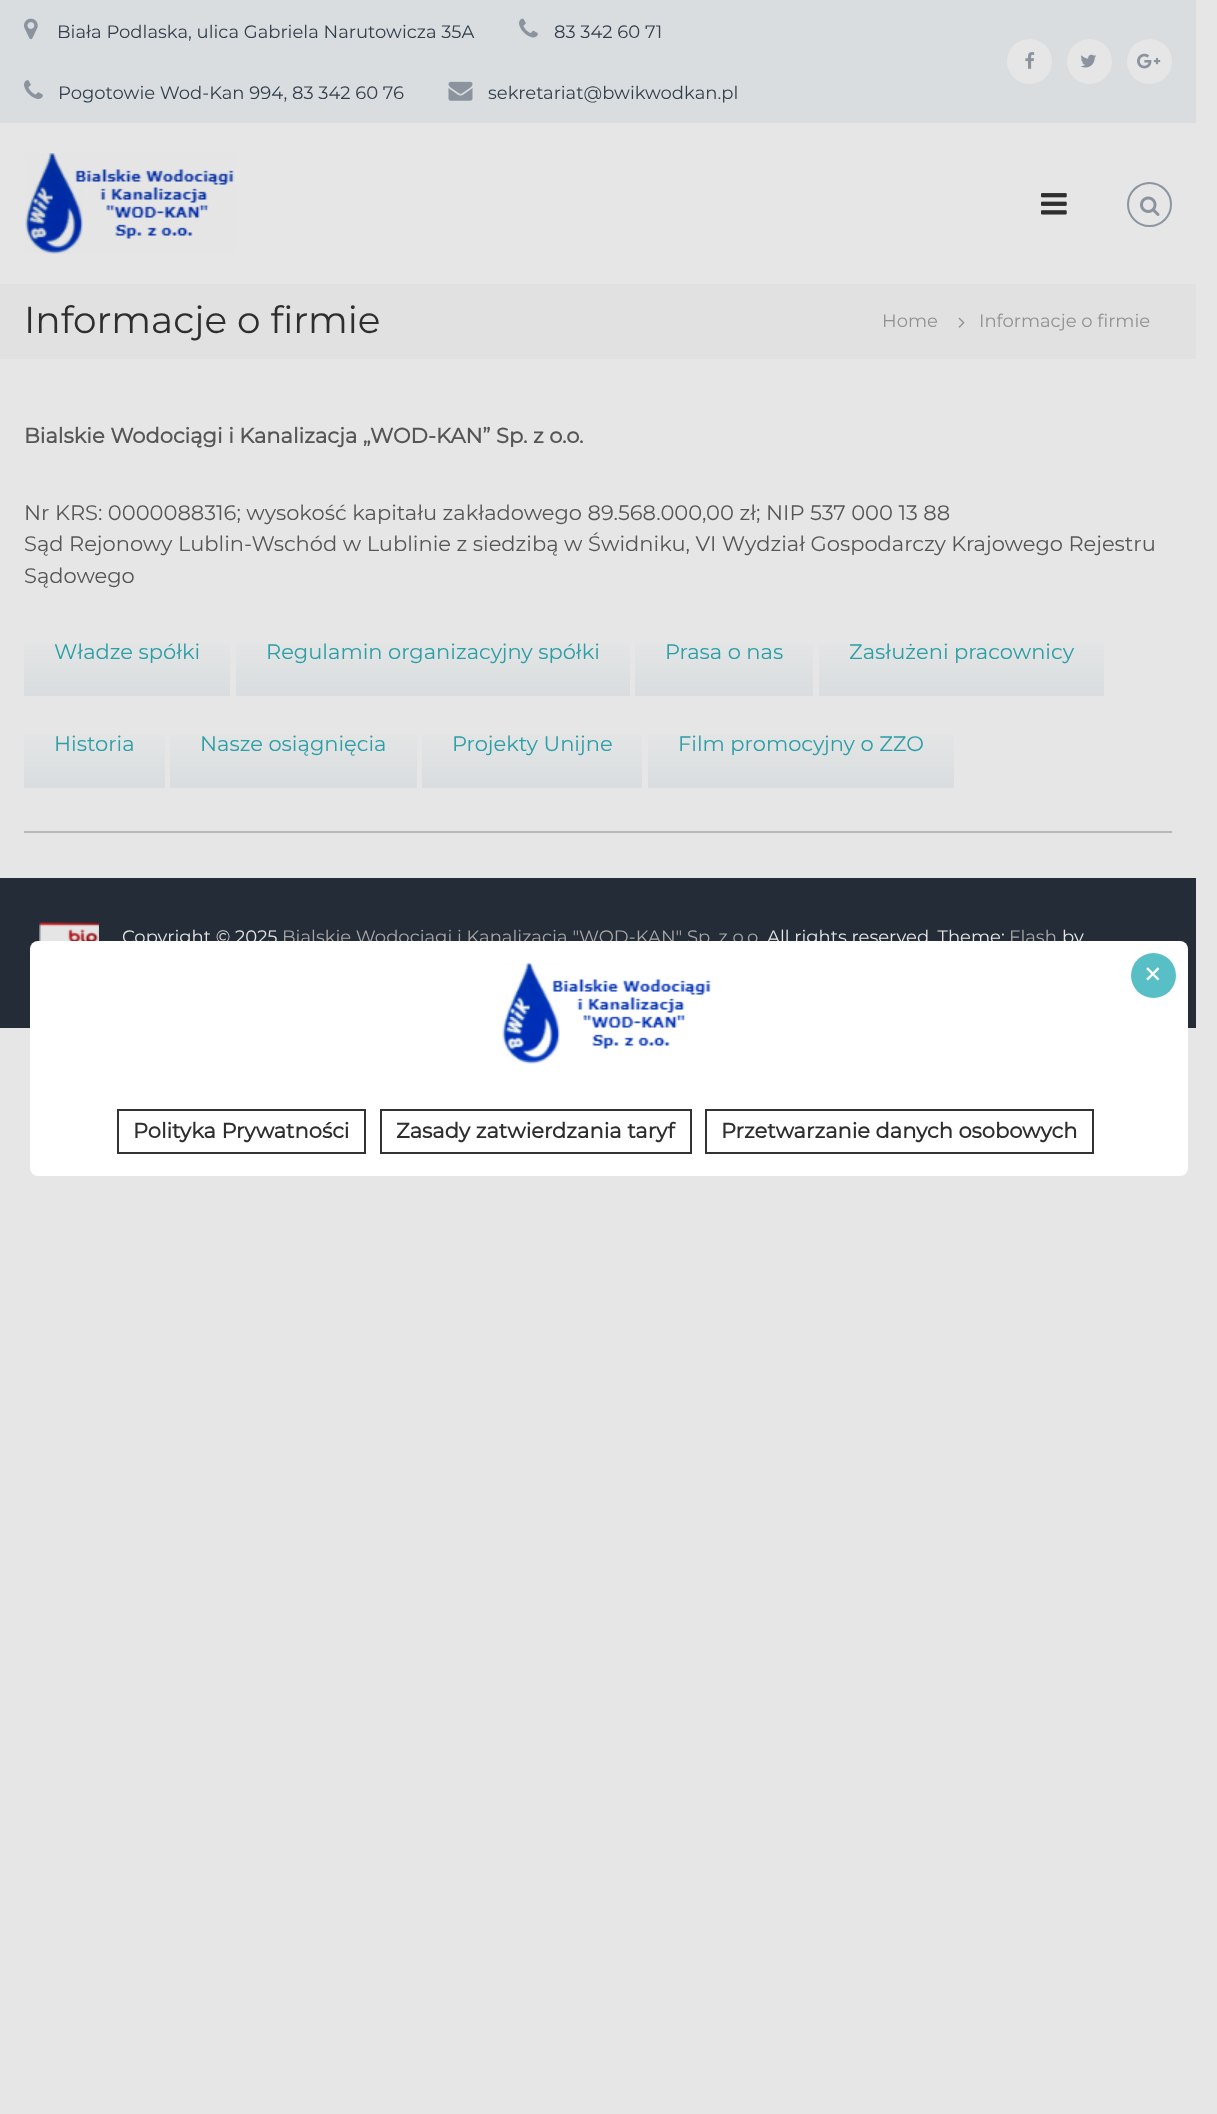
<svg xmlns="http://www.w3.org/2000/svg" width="1217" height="2114">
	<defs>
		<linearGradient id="g1" gradientUnits="userSpaceOnUse" x1="127" y1="609" x2="127" y2="696"><stop offset="0.3" stop-color="#E5E6E6" /><stop offset="1" stop-color="#D9DDDF" /></linearGradient>
		<linearGradient id="g2" gradientUnits="userSpaceOnUse" x1="433" y1="609" x2="433" y2="696"><stop offset="0.3" stop-color="#E5E6E6" /><stop offset="1" stop-color="#D9DDDF" /></linearGradient>
		<linearGradient id="g3" gradientUnits="userSpaceOnUse" x1="724" y1="609" x2="724" y2="696"><stop offset="0.3" stop-color="#E5E6E6" /><stop offset="1" stop-color="#D9DDDF" /></linearGradient>
		<linearGradient id="g4" gradientUnits="userSpaceOnUse" x1="962" y1="609" x2="962" y2="696"><stop offset="0.3" stop-color="#E5E6E6" /><stop offset="1" stop-color="#D9DDDF" /></linearGradient>
		<linearGradient id="g5" gradientUnits="userSpaceOnUse" x1="95" y1="701" x2="95" y2="788"><stop offset="0.3" stop-color="#E5E6E6" /><stop offset="1" stop-color="#D9DDDF" /></linearGradient>
		<linearGradient id="g6" gradientUnits="userSpaceOnUse" x1="293" y1="701" x2="293" y2="788"><stop offset="0.3" stop-color="#E5E6E6" /><stop offset="1" stop-color="#D9DDDF" /></linearGradient>
		<linearGradient id="g7" gradientUnits="userSpaceOnUse" x1="532" y1="701" x2="532" y2="788"><stop offset="0.3" stop-color="#E5E6E6" /><stop offset="1" stop-color="#D9DDDF" /></linearGradient>
		<linearGradient id="g8" gradientUnits="userSpaceOnUse" x1="801" y1="701" x2="801" y2="788"><stop offset="0.3" stop-color="#E5E6E6" /><stop offset="1" stop-color="#D9DDDF" /></linearGradient>
	</defs>
	<rect width="100%" height="100%" fill="#E6E6E6" />
	<rect x="0" y="0" width="1196" height="123" fill="#D9DDDF" />
	<image x="24" y="18" width="14" height="22" href="assets/img1.png" />
	<text x="57" y="38" font-family="Montserrat" font-size="18" fill="#323E4C">Biała Podlaska, ulica Gabriela Narutowicza 35A</text>
	<image x="519" y="18" width="19" height="20" href="assets/img2.png" />
	<text x="554" y="38" font-family="Montserrat" font-size="18" fill="#323E4C">83 342 60 71</text>
	<image x="24" y="80" width="19" height="19" href="assets/img3.png" />
	<text x="58" y="99" font-family="Montserrat" font-size="18" fill="#323E4C">Pogotowie Wod-Kan 994, 83 342 60 76</text>
	<image x="448" y="81" width="25" height="20" href="assets/img4.png" />
	<text x="488" y="99" font-family="Montserrat" font-size="18" fill="#323E4C">sekretariat@bwikwodkan.pl</text>
	<circle cx="1029.5" cy="61.5" r="22.5" fill="#E6E6E6" />
	<image x="1025" y="52" width="10" height="17" href="assets/img5.png" />
	<circle cx="1089.5" cy="61.5" r="22.5" fill="#E6E6E6" />
	<image x="1080" y="54" width="16" height="14" href="assets/img6.png" />
	<circle cx="1149.5" cy="61.5" r="22.5" fill="#E6E6E6" />
	<image x="1137" y="53" width="24" height="16" href="assets/img7.png" />
	<image x="25" y="153" width="210" height="101" href="assets/img8.png" />
	<image x="1041" y="193" width="26" height="22" href="assets/img9.png" />
	<circle cx="1149.5" cy="204.5" r="21.5" fill="none" stroke="#8C95A0" stroke-width="2" />
	<image x="1140" y="196" width="20" height="20" href="assets/img10.png" />
	<rect x="0" y="284" width="1196" height="75" fill="#E1E1E1" />
	<text x="24" y="333" font-family="Montserrat" font-size="37.5" fill="#2E2E2E">Informacje o firmie</text>
	<text x="882" y="327" font-family="Montserrat" font-size="18" fill="#919191">Home</text>
	<image x="958" y="317" width="7" height="11" href="assets/img11.png" />
	<text x="979" y="327" font-family="Montserrat" font-size="18" fill="#919191">Informacje o firmie</text>
	<text x="24" y="443" font-family="Montserrat" font-size="21" font-weight="700" fill="#565656">Bialskie Wodociągi i Kanalizacja „WOD-KAN” Sp. z o.o.</text>
	<g font-family="Montserrat" font-size="21" fill="#565656">
		<text x="24" y="520">Nr KRS: 0000088316; wysokość kapitału zakładowego 89.568.000,00 zł; NIP 537 000 13 88</text>
		<text x="24" y="551">Sąd Rejonowy Lublin-Wschód w Lublinie z siedzibą w Świdniku, VI Wydział Gospodarczy Krajowego Rejestru</text>
		<text x="24" y="583">Sądowego</text>
	</g>
	<rect x="24" y="643" width="206" height="53" fill="url(#g1)" />
	<text x="54" y="659" font-family="Montserrat" font-size="21" fill="#2B9EA6">Władze spółki</text>
	<rect x="236" y="643" width="394" height="53" fill="url(#g2)" />
	<text x="266" y="659" font-family="Montserrat" font-size="21" fill="#2B9EA6">Regulamin organizacyjny spółki</text>
	<rect x="635" y="643" width="178" height="53" fill="url(#g3)" />
	<text x="665" y="659" font-family="Montserrat" font-size="21" fill="#2B9EA6">Prasa o nas</text>
	<rect x="819" y="643" width="285" height="53" fill="url(#g4)" />
	<text x="849" y="659" font-family="Montserrat" font-size="21" fill="#2B9EA6">Zasłużeni pracownicy</text>
	<rect x="24" y="735" width="141" height="53" fill="url(#g5)" />
	<text x="54" y="751" font-family="Montserrat" font-size="21" fill="#2B9EA6">Historia</text>
	<rect x="170" y="735" width="247" height="53" fill="url(#g6)" />
	<text x="200" y="751" font-family="Montserrat" font-size="21" fill="#2B9EA6">Nasze osiągnięcia</text>
	<rect x="422" y="735" width="220" height="53" fill="url(#g7)" />
	<text x="452" y="751" font-family="Montserrat" font-size="21" fill="#2B9EA6">Projekty Unijne</text>
	<rect x="648" y="735" width="306" height="53" fill="url(#g8)" />
	<text x="678" y="751" font-family="Montserrat" font-size="21" fill="#2B9EA6">Film promocyjny o ZZO</text>
	<rect x="24" y="831" width="1148" height="2" fill="#B8B8B8" />
	<rect x="0" y="878" width="1196" height="150" fill="#242C37" />
	<image x="39" y="922" width="60" height="19" href="assets/img12.png" />
	<text x="122" y="943" font-family="Montserrat" font-size="18" fill="#E6E6E6">Copyright © 2025</text>
	<text x="282" y="943" font-family="Montserrat" font-size="18" fill="#A9A7A7">Bialskie Wodociągi i Kanalizacja "WOD-KAN" Sp. z o.o</text>
	<text x="767" y="943" font-family="Montserrat" font-size="18" fill="#E6E6E6">All rights reserved. Theme:</text>
	<text x="1009" y="943" font-family="Montserrat" font-size="18" fill="#A9A7A7">Flash</text>
	<text x="1062" y="943" font-family="Montserrat" font-size="18" fill="#E6E6E6">by</text>
	<rect x="30" y="941" width="1158" height="235" rx="8" fill="#FFFFFF" />
	<circle cx="1153.5" cy="975.5" r="22.5" fill="#59BFC6" />
	<text x="1142" y="987" font-family="Montserrat" font-size="37.5" fill="#FFFFFF">×</text>
	<image x="502" y="962" width="210" height="102" href="assets/img13.png" />
	<rect x="118" y="1110" width="247" height="43" fill="none" stroke="#333333" stroke-width="2" />
	<text x="133" y="1138" font-family="Montserrat" font-size="21" font-weight="700" fill="#2E2E2E">Polityka Prywatności</text>
	<rect x="381" y="1110" width="310" height="43" fill="none" stroke="#333333" stroke-width="2" />
	<text x="396" y="1138" font-family="Montserrat" font-size="21" font-weight="700" fill="#2E2E2E">Zasady zatwierdzania taryf</text>
	<rect x="706" y="1110" width="387" height="43" fill="none" stroke="#333333" stroke-width="2" />
	<text x="721" y="1138" font-family="Montserrat" font-size="21" font-weight="700" fill="#2E2E2E">Przetwarzanie danych osobowych</text>
</svg>
